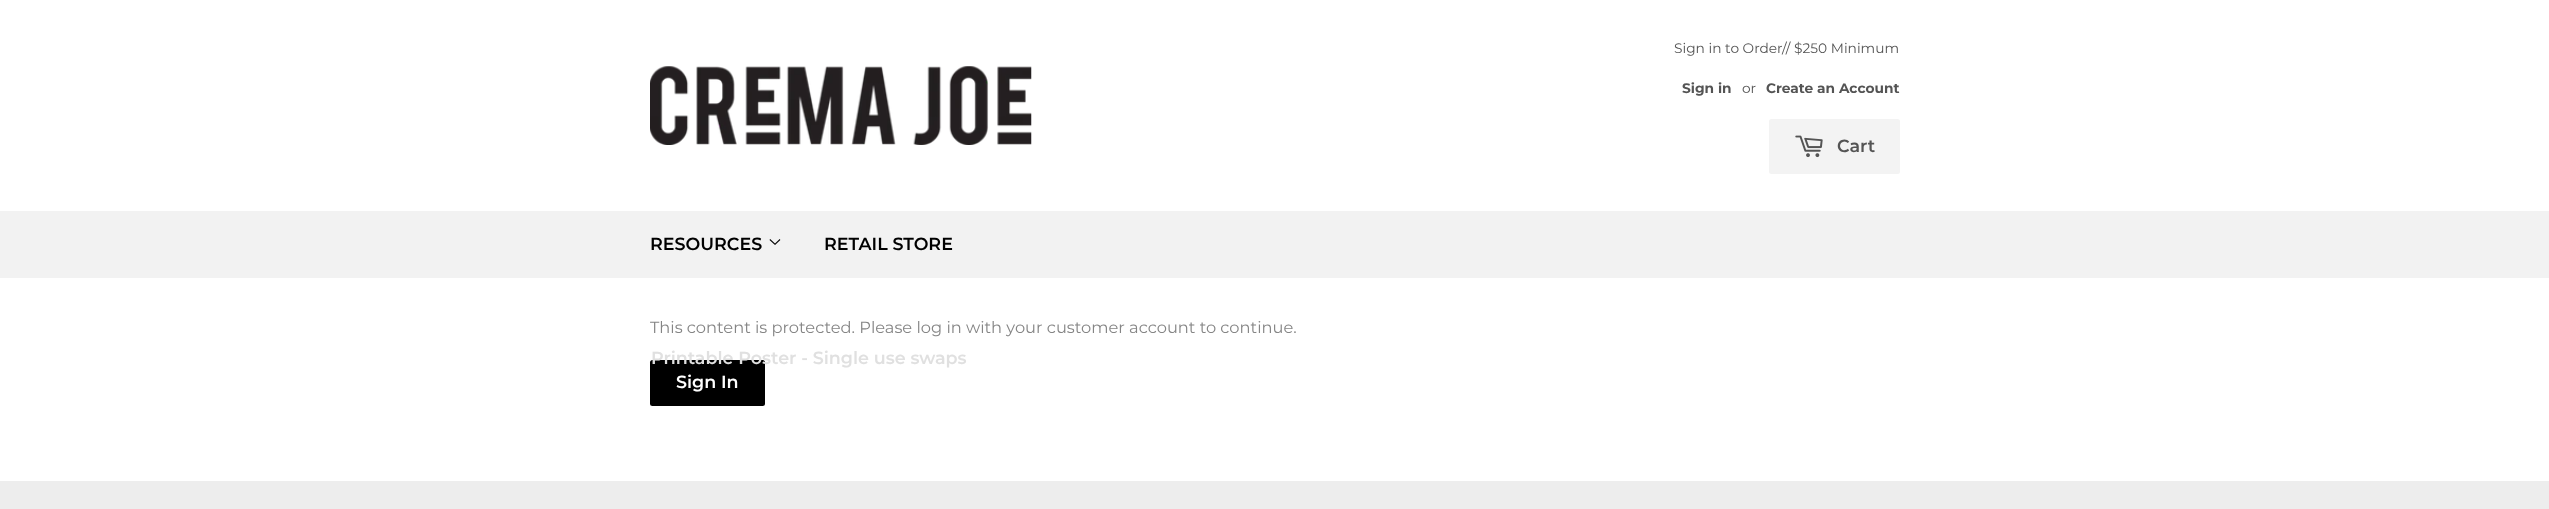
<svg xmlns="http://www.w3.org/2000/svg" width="2549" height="509">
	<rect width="100%" height="100%" fill="#FFFFFF" />
	<image x="650" y="66" width="382" height="79" href="assets/img1.png" />
	<text x="1674" y="53" font-family="Montserrat" font-size="13.75" fill="#545454">Sign in to Order// $250 Minimum</text>
	<text x="1682" y="93" font-family="Montserrat" font-size="13.75" font-weight="700" fill="#545454">Sign in</text>
	<text x="1742" y="93" font-family="Montserrat" font-size="13.75" fill="#545454">or</text>
	<text x="1766" y="93" font-family="Montserrat" font-size="13.75" font-weight="700" fill="#545454">Create an Account</text>
	<rect x="1769" y="119" width="131" height="55" rx="2.5" fill="#F3F3F3" />
	<image x="1795" y="135" width="28" height="23" href="assets/img2.png" />
	<text x="1837" y="152" font-family="Montserrat" font-size="17.5" font-weight="600" fill="#545454">Cart</text>
	<rect x="0" y="211" width="2549" height="67" fill="#F2F2F2" />
	<text x="650" y="250" font-family="Montserrat" font-size="17.5" font-weight="600" fill="#000000">RESOURCES</text>
	<image x="769" y="239" width="12" height="6" href="assets/img3.png" />
	<rect x="650" y="360" width="115" height="46" rx="2.5" fill="#000000" />
	<text x="651" y="364" font-family="Montserrat" font-size="17.5" font-weight="600" fill="#E0E0E0">Printable Poster - Single use swaps</text>
	<text x="824" y="250" font-family="Montserrat" font-size="17.5" font-weight="600" fill="#000000">RETAIL STORE</text>
	<text x="650" y="333" font-family="Montserrat" font-size="16.25" fill="#858585">This content is protected. Please log in with your customer account to continue.</text>
	<text x="676" y="388" font-family="Montserrat" font-size="17.5" font-weight="600" fill="#FFFFFF">Sign In</text>
	<rect x="0" y="481" width="2549" height="28" fill="#EDEDED" />
</svg>
